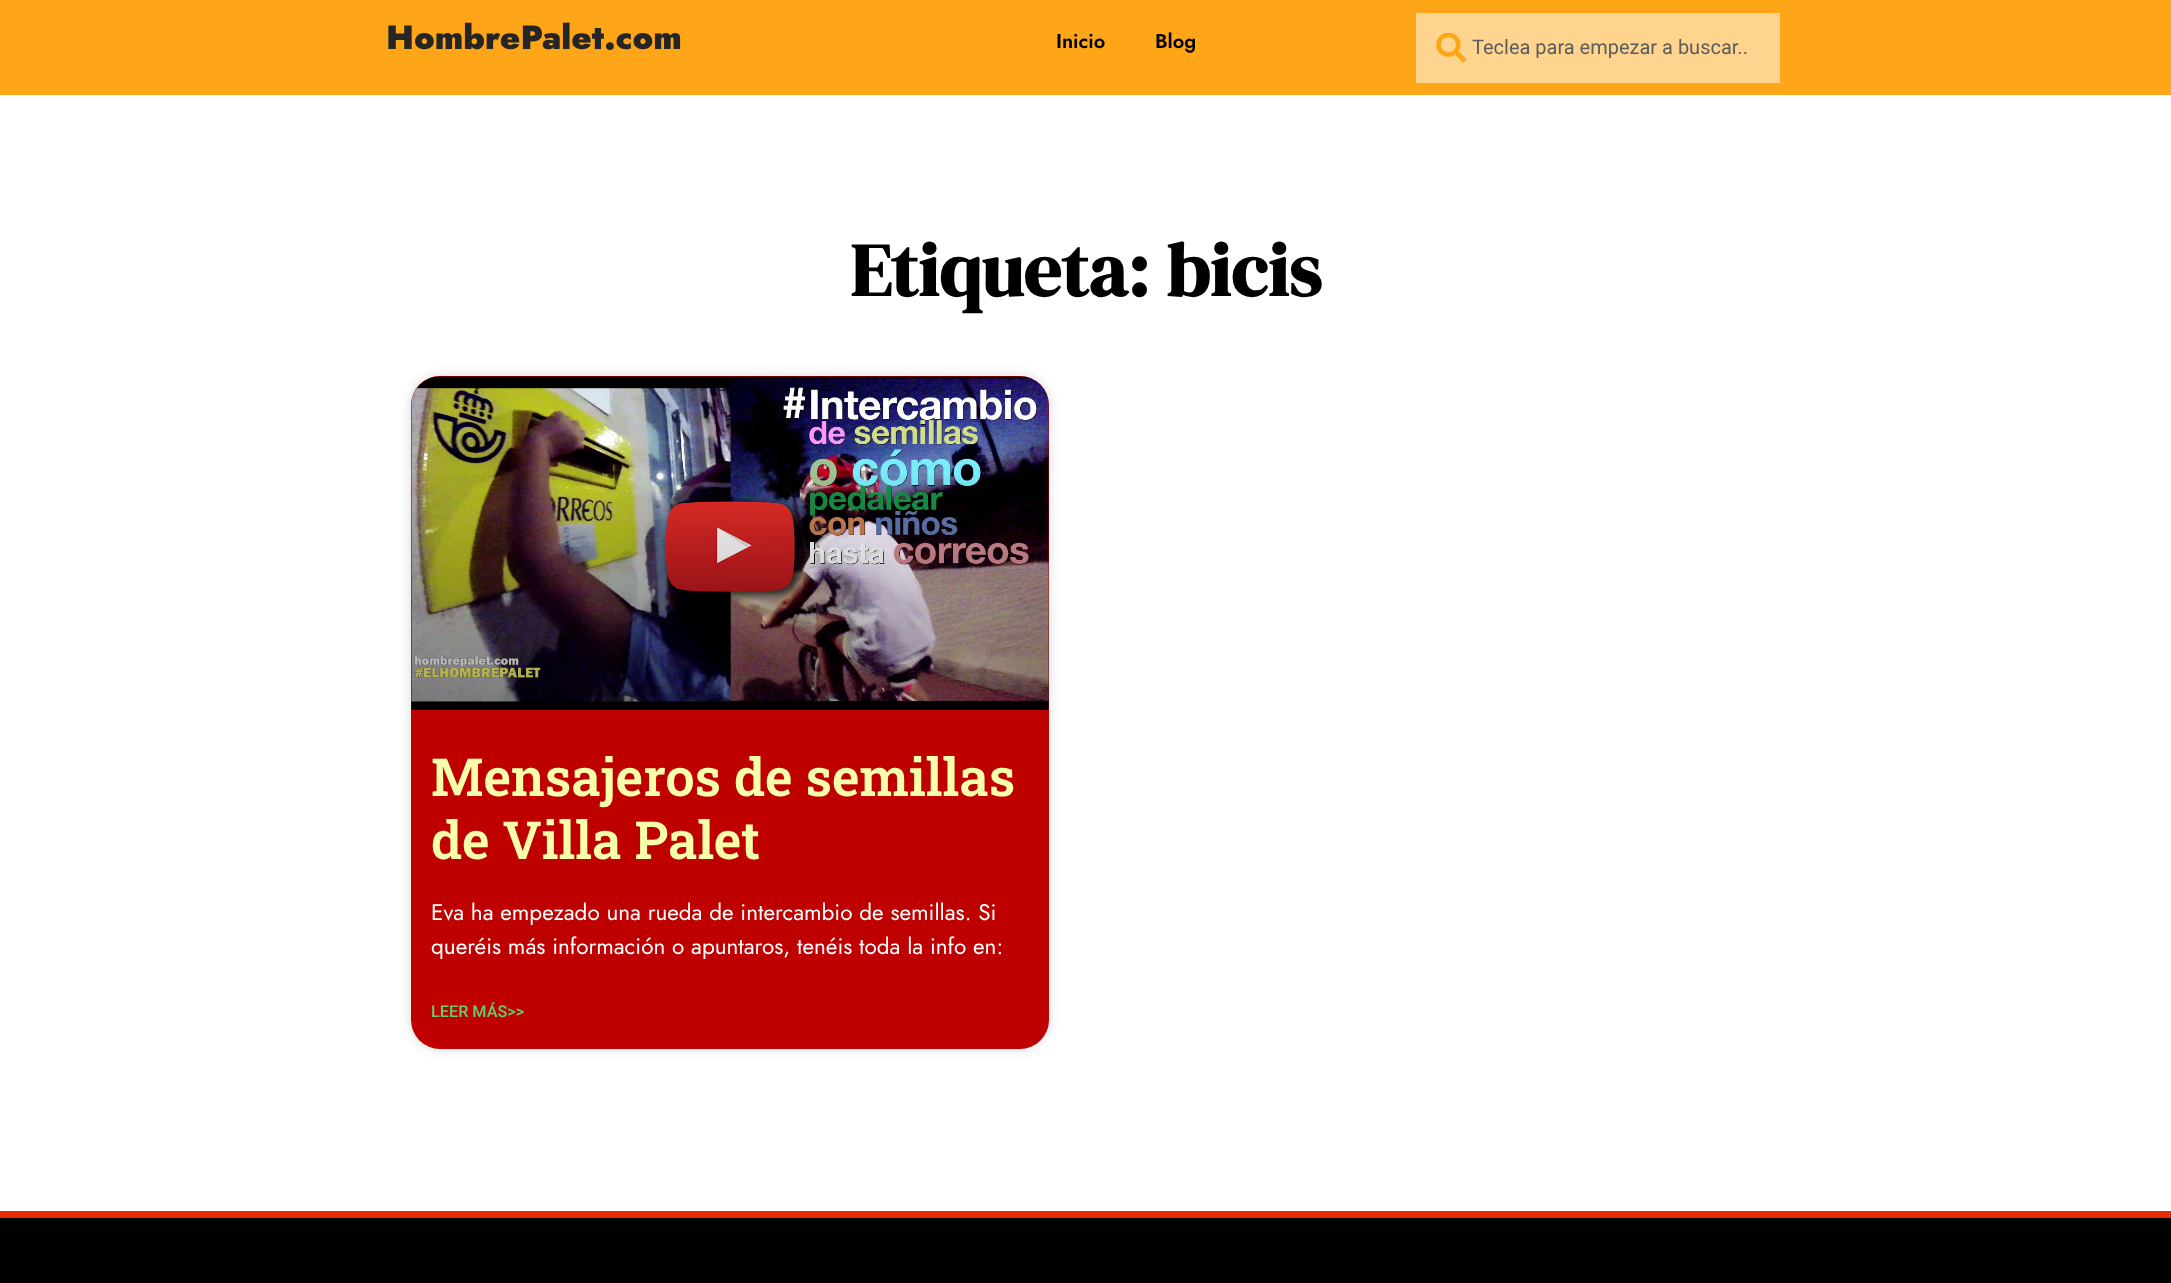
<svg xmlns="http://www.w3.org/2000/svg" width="2171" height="1283">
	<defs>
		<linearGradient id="g1" gradientUnits="userSpaceOnUse" x1="730" y1="710" x2="730" y2="376"><stop offset="0" stop-color="#000000" stop-opacity="0.35" /><stop offset="0.75" stop-color="#000000" stop-opacity="0" /></linearGradient>
	</defs>
	<rect width="100%" height="100%" fill="#FFFFFF" />
	<rect x="0" y="0" width="2171" height="95" fill="#FFA618" />
	<text x="386" y="49" font-family="Jost" font-size="33.75" font-weight="900" fill="#252525">HombrePalet.com</text>
	<g font-family="Jost" font-size="20" font-weight="600" fill="#000000">
		<text x="1056" y="48">Inicio</text>
		<text x="1155" y="48">Blog</text>
	</g>
	<rect x="1416" y="13" width="364" height="70" fill="#FFD48E" />
	<image x="1436" y="33" width="30" height="30" href="assets/img1.png" />
	<text x="1472" y="54" font-family="Roboto" font-size="20" fill="#5C5C5C">Teclea para empezar a buscar..</text>
	<text x="850" y="296" font-family="DM Serif Display" font-size="75" font-weight="700" fill="#000000">Etiqueta: bicis</text>
	<rect x="411" y="376" width="638" height="673" rx="29" fill="#000000" fill-opacity="0.15" filter="blur(6px)" />
	<rect x="411" y="376" width="638" height="673" rx="29" fill="#BE0000" />
	<image x="411" y="376" width="638" height="334" href="assets/img2.png" />
	<rect x="411" y="475" width="638" height="235" fill="url(#g1)" />
	<g font-family="Roboto Slab" font-size="52.5" font-weight="600" fill="#F8FFAA">
		<text x="431" y="796">Mensajeros de semillas</text>
		<text x="431" y="859">de Villa Palet</text>
	</g>
	<g font-family="Jost" font-size="22.5" fill="#FFFFFF">
		<text x="431" y="920">Eva ha empezado una rueda de intercambio de semillas. Si</text>
		<text x="431" y="954">queréis más información o apuntaros, tenéis toda la info en:</text>
	</g>
	<text x="431" y="1017" font-family="Roboto" font-size="16.25" font-weight="500" fill="#61CE70">LEER MÁS&gt;&gt;</text>
	<rect x="0" y="1218" width="2171" height="65" fill="#000000" />
	<rect x="0" y="1211" width="2171" height="7" fill="#E82A00" />
</svg>
